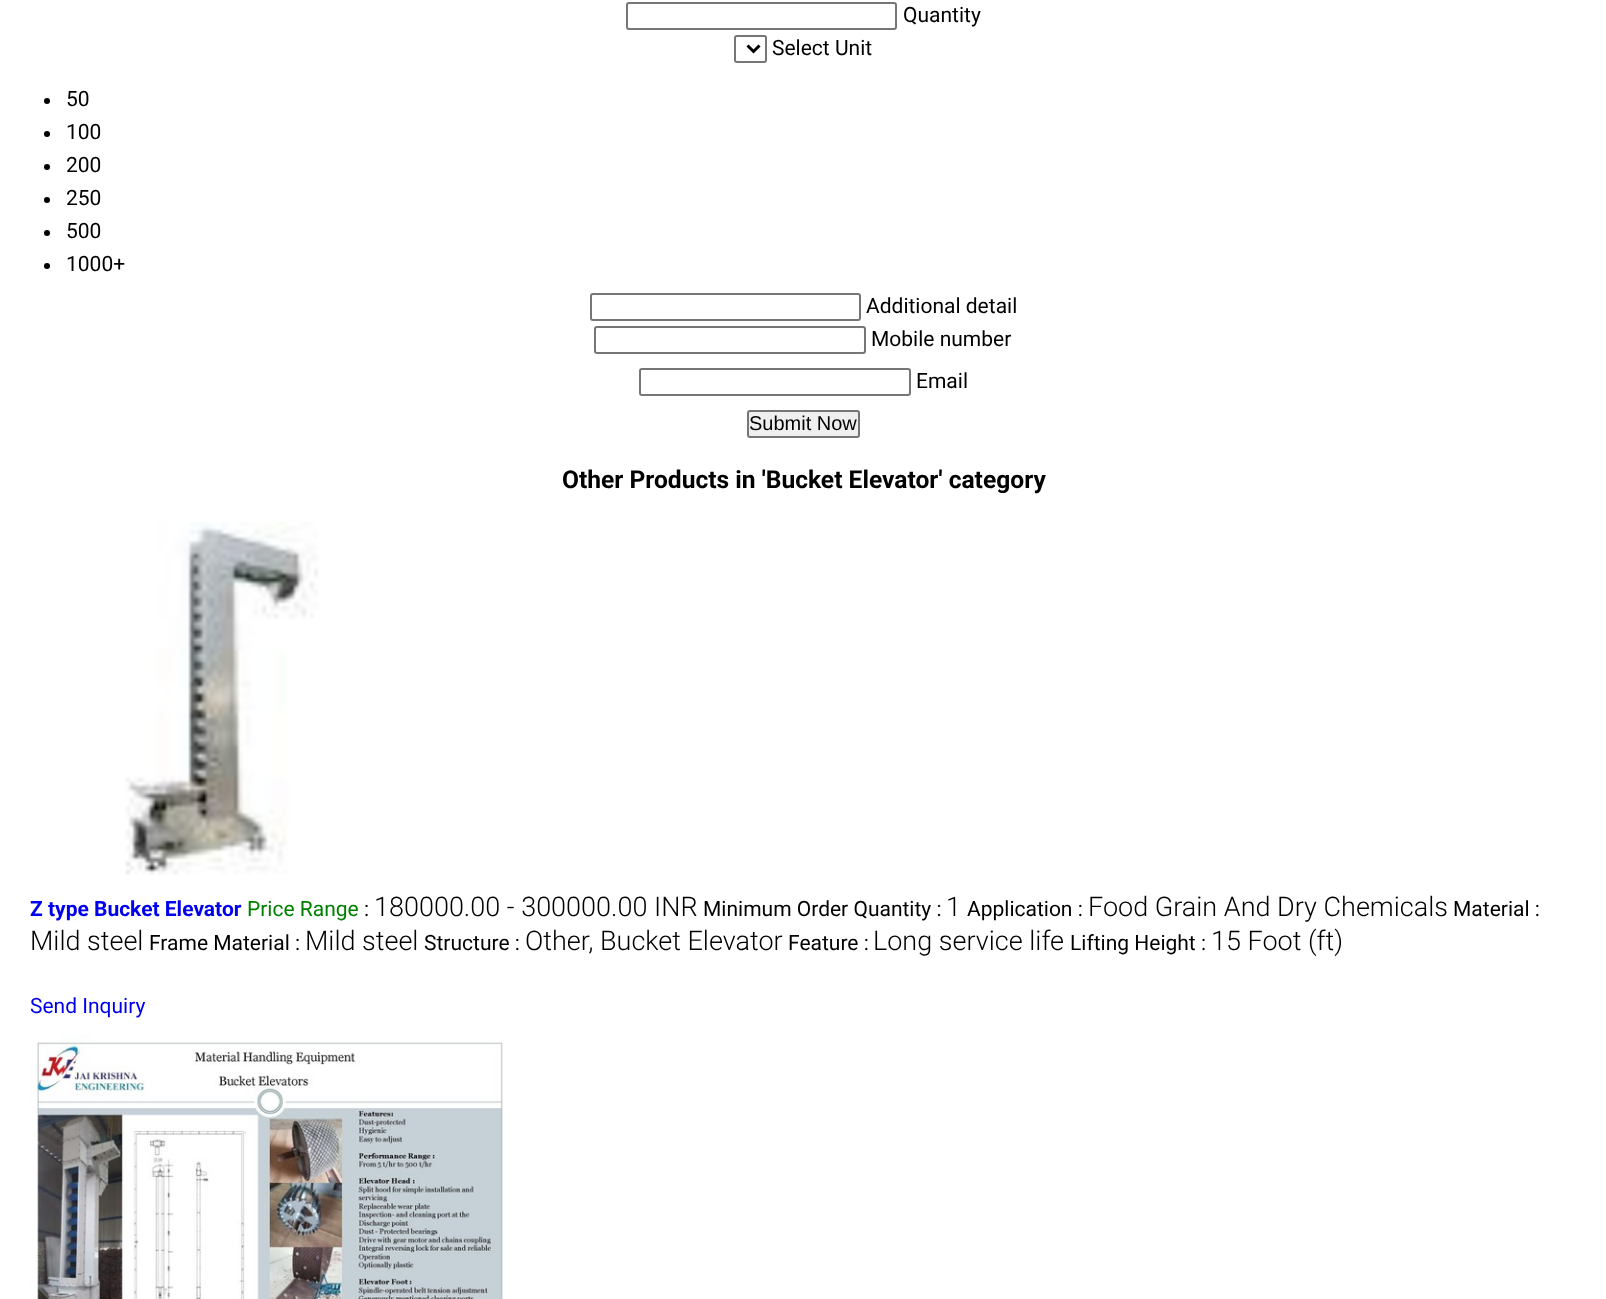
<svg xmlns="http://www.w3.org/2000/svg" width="1606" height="1299">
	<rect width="100%" height="100%" fill="#FFFFFF" />
	<rect x="627" y="3" width="269" height="26" rx="2" fill="none" stroke="#767676" stroke-width="2" />
	<text x="903" y="22" font-family="Roboto" font-size="21" fill="#000000">Quantity</text>
	<rect x="735" y="36" width="31" height="26" rx="2" fill="none" stroke="#767676" stroke-width="2" />
	<path d="M747.5 45.5L753.5 51.5L759.5 45.5" fill="none" stroke="#000000" stroke-width="3" />
	<text x="772" y="55" font-family="Roboto" font-size="21" fill="#000000">Select Unit</text>
	<circle cx="47" cy="101" r="3" fill="#000000" />
	<text x="66" y="106" font-family="Roboto" font-size="21" fill="#000000">50</text>
	<circle cx="47" cy="134" r="3" fill="#000000" />
	<text x="66" y="139" font-family="Roboto" font-size="21" fill="#000000">100</text>
	<circle cx="47" cy="167" r="3" fill="#000000" />
	<text x="66" y="172" font-family="Roboto" font-size="21" fill="#000000">200</text>
	<circle cx="47" cy="200" r="3" fill="#000000" />
	<text x="66" y="205" font-family="Roboto" font-size="21" fill="#000000">250</text>
	<circle cx="47" cy="233" r="3" fill="#000000" />
	<text x="66" y="238" font-family="Roboto" font-size="21" fill="#000000">500</text>
	<circle cx="47" cy="266" r="3" fill="#000000" />
	<text x="66" y="271" font-family="Roboto" font-size="21" fill="#000000">1000+</text>
	<rect x="591" y="294" width="269" height="26" rx="2" fill="none" stroke="#767676" stroke-width="2" />
	<text x="866" y="313" font-family="Roboto" font-size="21" fill="#000000">Additional detail</text>
	<rect x="595" y="327" width="270" height="26" rx="2" fill="none" stroke="#767676" stroke-width="2" />
	<text x="871" y="346" font-family="Roboto" font-size="21" fill="#000000">Mobile number</text>
	<rect x="640" y="369" width="270" height="26" rx="2" fill="none" stroke="#767676" stroke-width="2" />
	<text x="916" y="388" font-family="Roboto" font-size="21" fill="#000000">Email</text>
	<rect x="748" y="411" width="111" height="26" rx="2" fill="#EFEFEF" stroke="#767676" stroke-width="2" />
	<text x="749" y="430" font-family="Liberation Sans" font-size="20" fill="#000000">Submit Now</text>
	<text x="562" y="488" font-family="Roboto" font-size="24.6" font-weight="700" fill="#000000">Other Products in 'Bucket Elevator' category</text>
	<image x="125" y="522" width="194" height="353" href="assets/img1.png" />
	<text x="30" y="916" font-family="Roboto" font-size="21" font-weight="700" fill="#0000EE">Z type Bucket Elevator</text>
	<text x="247" y="916" font-family="Roboto" font-size="21" fill="#008000">Price Range</text>
	<text x="364" y="916" font-family="Roboto" font-size="21" fill="#000000">:</text>
	<text x="374" y="916" font-family="Roboto" font-size="27" font-weight="300" fill="#000000">180000.00 - 300000.00 INR</text>
	<text x="703" y="916" font-family="Roboto" font-size="21" fill="#000000">Minimum Order Quantity :</text>
	<text x="946" y="916" font-family="Roboto" font-size="27" font-weight="300" fill="#000000">1</text>
	<text x="967" y="916" font-family="Roboto" font-size="21" fill="#000000">Application :</text>
	<text x="1088" y="916" font-family="Roboto" font-size="27" font-weight="300" fill="#000000">Food Grain And Dry Chemicals</text>
	<text x="1453" y="916" font-family="Roboto" font-size="21" fill="#000000">Material :</text>
	<text x="30" y="950" font-family="Roboto" font-size="27" font-weight="300" fill="#000000">Mild steel</text>
	<text x="149" y="950" font-family="Roboto" font-size="21" fill="#000000">Frame Material :</text>
	<text x="305" y="950" font-family="Roboto" font-size="27" font-weight="300" fill="#000000">Mild steel</text>
	<text x="424" y="950" font-family="Roboto" font-size="21" fill="#000000">Structure :</text>
	<text x="525" y="950" font-family="Roboto" font-size="27" font-weight="300" fill="#000000">Other, Bucket Elevator</text>
	<text x="788" y="950" font-family="Roboto" font-size="21" fill="#000000">Feature :</text>
	<text x="873" y="950" font-family="Roboto" font-size="27" font-weight="300" fill="#000000">Long service life</text>
	<text x="1070" y="950" font-family="Roboto" font-size="21" fill="#000000">Lifting Height :</text>
	<text x="1211" y="950" font-family="Roboto" font-size="27" font-weight="300" fill="#000000">15 Foot (ft)</text>
	<text x="30" y="1013" font-family="Roboto" font-size="21" fill="#0000EE">Send Inquiry</text>
	<image x="30" y="1035" width="475" height="264" href="assets/img2.png" />
</svg>
